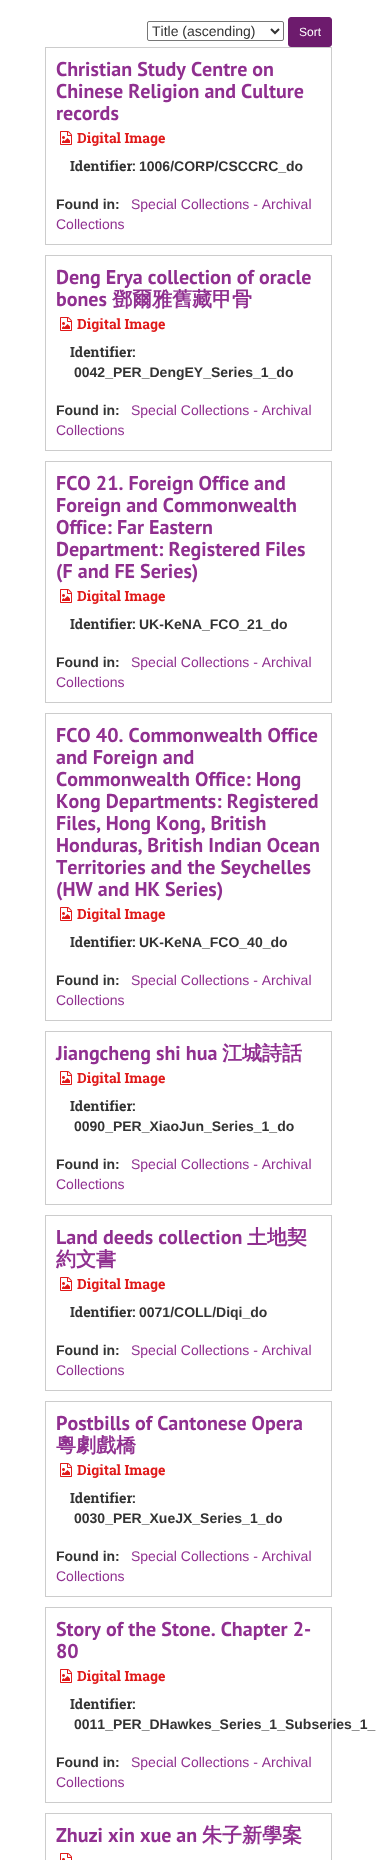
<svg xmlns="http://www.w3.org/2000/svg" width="377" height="1860">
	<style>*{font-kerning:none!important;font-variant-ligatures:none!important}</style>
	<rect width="100%" height="100%" fill="#FFFFFF" />
	<rect x="147.5" y="21.5" width="136" height="19" rx="1.5" fill="none" stroke="#767676" />
	<path d="M271 29L275 33L279 29" fill="none" stroke="#333333" stroke-width="2" />
	<text x="152" y="36" font-family="Liberation Sans" font-size="14" fill="#333333">Title (ascending)</text>
	<rect x="288.5" y="17.5" width="43" height="29" rx="2.5" fill="#6D1B6D" stroke="#6D1B6D" />
	<text x="299" y="36" font-family="Liberation Sans" font-size="12" fill="#FFFFFF">Sort</text>
	<rect x="45.5" y="47.5" width="286" height="197" fill="none" stroke="#CCCCCC" />
	<g font-family="PT Sans" font-size="20" font-weight="700" fill="#903090">
		<text x="56" y="76">Christian Study Centre on</text>
		<text x="56" y="98">Chinese Religion and Culture</text>
		<text x="56" y="120">records</text>
	</g>
	<image x="60" y="131" width="12" height="14" href="assets/img1.png" />
	<text x="77" y="143" font-family="Roboto Slab" font-size="14" font-weight="700" fill="#E01919">Digital Image</text>
	<text x="70" y="171" font-family="Roboto Slab" font-size="14" font-weight="700" fill="#333333">Identifier:</text>
	<g font-family="Liberation Sans" font-size="14" font-weight="700" fill="#333333">
		<text x="139" y="171">1006/CORP/CSCCRC_do</text>
		<text x="56" y="209">Found in:</text>
	</g>
	<g font-family="Liberation Sans" font-size="14" fill="#903090">
		<text x="131" y="209">Special Collections - Archival</text>
		<text x="56" y="229">Collections</text>
	</g>
	<rect x="45.5" y="255.5" width="286" height="195" fill="none" stroke="#CCCCCC" />
	<g font-family="PT Sans" font-size="20" font-weight="700" fill="#903090">
		<text x="56" y="284">Deng Erya collection of oracle</text>
		<text x="56" y="306">bones</text>
	</g>
	<text x="112" y="306" font-family="WenQuanYi Zen Hei" font-size="20" font-weight="700" fill="#903090">鄧爾雅舊藏甲骨</text>
	<image x="60" y="317" width="12" height="14" href="assets/img1.png" />
	<text x="77" y="329" font-family="Roboto Slab" font-size="14" font-weight="700" fill="#E01919">Digital Image</text>
	<text x="70" y="357" font-family="Roboto Slab" font-size="14" font-weight="700" fill="#333333">Identifier:</text>
	<g font-family="Liberation Sans" font-size="14" font-weight="700" fill="#333333">
		<text x="74" y="377">0042_PER_DengEY_Series_1_do</text>
		<text x="56" y="415">Found in:</text>
	</g>
	<g font-family="Liberation Sans" font-size="14" fill="#903090">
		<text x="131" y="415">Special Collections - Archival</text>
		<text x="56" y="435">Collections</text>
	</g>
	<rect x="45.5" y="461.5" width="286" height="241" fill="none" stroke="#CCCCCC" />
	<g font-family="PT Sans" font-size="20" font-weight="700" fill="#903090">
		<text x="56" y="490">FCO 21. Foreign Office and</text>
		<text x="56" y="512">Foreign and Commonwealth</text>
		<text x="56" y="534">Office: Far Eastern</text>
		<text x="56" y="556">Department: Registered Files</text>
		<text x="56" y="578">(F and FE Series)</text>
	</g>
	<image x="60" y="589" width="12" height="14" href="assets/img1.png" />
	<text x="77" y="601" font-family="Roboto Slab" font-size="14" font-weight="700" fill="#E01919">Digital Image</text>
	<text x="70" y="629" font-family="Roboto Slab" font-size="14" font-weight="700" fill="#333333">Identifier:</text>
	<g font-family="Liberation Sans" font-size="14" font-weight="700" fill="#333333">
		<text x="139" y="629">UK-KeNA_FCO_21_do</text>
		<text x="56" y="667">Found in:</text>
	</g>
	<g font-family="Liberation Sans" font-size="14" fill="#903090">
		<text x="131" y="667">Special Collections - Archival</text>
		<text x="56" y="687">Collections</text>
	</g>
	<rect x="45.5" y="713.5" width="286" height="307" fill="none" stroke="#CCCCCC" />
	<g font-family="PT Sans" font-size="20" font-weight="700" fill="#903090">
		<text x="56" y="742">FCO 40. Commonwealth Office</text>
		<text x="56" y="764">and Foreign and</text>
		<text x="56" y="786">Commonwealth Office: Hong</text>
		<text x="56" y="808">Kong Departments: Registered</text>
		<text x="56" y="830">Files, Hong Kong, British</text>
		<text x="56" y="852">Honduras, British Indian Ocean</text>
		<text x="56" y="874">Territories and the Seychelles</text>
		<text x="56" y="896">(HW and HK Series)</text>
	</g>
	<image x="60" y="907" width="12" height="14" href="assets/img1.png" />
	<text x="77" y="919" font-family="Roboto Slab" font-size="14" font-weight="700" fill="#E01919">Digital Image</text>
	<text x="70" y="947" font-family="Roboto Slab" font-size="14" font-weight="700" fill="#333333">Identifier:</text>
	<g font-family="Liberation Sans" font-size="14" font-weight="700" fill="#333333">
		<text x="139" y="947">UK-KeNA_FCO_40_do</text>
		<text x="56" y="985">Found in:</text>
	</g>
	<g font-family="Liberation Sans" font-size="14" fill="#903090">
		<text x="131" y="985">Special Collections - Archival</text>
		<text x="56" y="1005">Collections</text>
	</g>
	<rect x="45.5" y="1031.5" width="286" height="173" fill="none" stroke="#CCCCCC" />
	<text x="56" y="1060" font-family="PT Sans" font-size="20" font-weight="700" fill="#903090">Jiangcheng shi hua</text>
	<text x="222" y="1060" font-family="WenQuanYi Zen Hei" font-size="20" font-weight="700" fill="#903090">江城詩話</text>
	<image x="60" y="1071" width="12" height="14" href="assets/img1.png" />
	<text x="77" y="1083" font-family="Roboto Slab" font-size="14" font-weight="700" fill="#E01919">Digital Image</text>
	<text x="70" y="1111" font-family="Roboto Slab" font-size="14" font-weight="700" fill="#333333">Identifier:</text>
	<g font-family="Liberation Sans" font-size="14" font-weight="700" fill="#333333">
		<text x="74" y="1131">0090_PER_XiaoJun_Series_1_do</text>
		<text x="56" y="1169">Found in:</text>
	</g>
	<g font-family="Liberation Sans" font-size="14" fill="#903090">
		<text x="131" y="1169">Special Collections - Archival</text>
		<text x="56" y="1189">Collections</text>
	</g>
	<rect x="45.5" y="1215.5" width="286" height="175" fill="none" stroke="#CCCCCC" />
	<text x="56" y="1244" font-family="PT Sans" font-size="20" font-weight="700" fill="#903090">Land deeds collection</text>
	<g font-family="WenQuanYi Zen Hei" font-size="20" font-weight="700" fill="#903090">
		<text x="247" y="1244">土地契</text>
		<text x="56" y="1266">約文書</text>
	</g>
	<image x="60" y="1277" width="12" height="14" href="assets/img1.png" />
	<text x="77" y="1289" font-family="Roboto Slab" font-size="14" font-weight="700" fill="#E01919">Digital Image</text>
	<text x="70" y="1317" font-family="Roboto Slab" font-size="14" font-weight="700" fill="#333333">Identifier:</text>
	<g font-family="Liberation Sans" font-size="14" font-weight="700" fill="#333333">
		<text x="139" y="1317">0071/COLL/Diqi_do</text>
		<text x="56" y="1355">Found in:</text>
	</g>
	<g font-family="Liberation Sans" font-size="14" fill="#903090">
		<text x="131" y="1355">Special Collections - Archival</text>
		<text x="56" y="1375">Collections</text>
	</g>
	<rect x="45.5" y="1401.5" width="286" height="195" fill="none" stroke="#CCCCCC" />
	<text x="56" y="1430" font-family="PT Sans" font-size="20" font-weight="700" fill="#903090">Postbills of Cantonese Opera</text>
	<text x="56" y="1452" font-family="WenQuanYi Zen Hei" font-size="20" font-weight="700" fill="#903090">粵劇戲橋</text>
	<image x="60" y="1463" width="12" height="14" href="assets/img1.png" />
	<text x="77" y="1475" font-family="Roboto Slab" font-size="14" font-weight="700" fill="#E01919">Digital Image</text>
	<text x="70" y="1503" font-family="Roboto Slab" font-size="14" font-weight="700" fill="#333333">Identifier:</text>
	<g font-family="Liberation Sans" font-size="14" font-weight="700" fill="#333333">
		<text x="74" y="1523">0030_PER_XueJX_Series_1_do</text>
		<text x="56" y="1561">Found in:</text>
	</g>
	<g font-family="Liberation Sans" font-size="14" fill="#903090">
		<text x="131" y="1561">Special Collections - Archival</text>
		<text x="56" y="1581">Collections</text>
	</g>
	<rect x="45.5" y="1607.5" width="286" height="195" fill="none" stroke="#CCCCCC" />
	<g font-family="PT Sans" font-size="20" font-weight="700" fill="#903090">
		<text x="56" y="1636">Story of the Stone. Chapter 2-</text>
		<text x="56" y="1658">80</text>
	</g>
	<image x="60" y="1669" width="12" height="14" href="assets/img1.png" />
	<text x="77" y="1681" font-family="Roboto Slab" font-size="14" font-weight="700" fill="#E01919">Digital Image</text>
	<text x="70" y="1709" font-family="Roboto Slab" font-size="14" font-weight="700" fill="#333333">Identifier:</text>
	<g font-family="Liberation Sans" font-size="14" font-weight="700" fill="#333333">
		<text x="74" y="1729">0011_PER_DHawkes_Series_1_Subseries_1_</text>
		<text x="56" y="1767">Found in:</text>
	</g>
	<g font-family="Liberation Sans" font-size="14" fill="#903090">
		<text x="131" y="1767">Special Collections - Archival</text>
		<text x="56" y="1787">Collections</text>
	</g>
	<rect x="45.5" y="1813.5" width="286" height="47" fill="none" stroke="#CCCCCC" />
	<text x="56" y="1842" font-family="PT Sans" font-size="20" font-weight="700" fill="#903090">Zhuzi xin xue an</text>
	<text x="202" y="1842" font-family="WenQuanYi Zen Hei" font-size="20" font-weight="700" fill="#903090">朱子新學案</text>
	<image x="60" y="1853" width="12" height="7" href="assets/img2.png" />
</svg>
